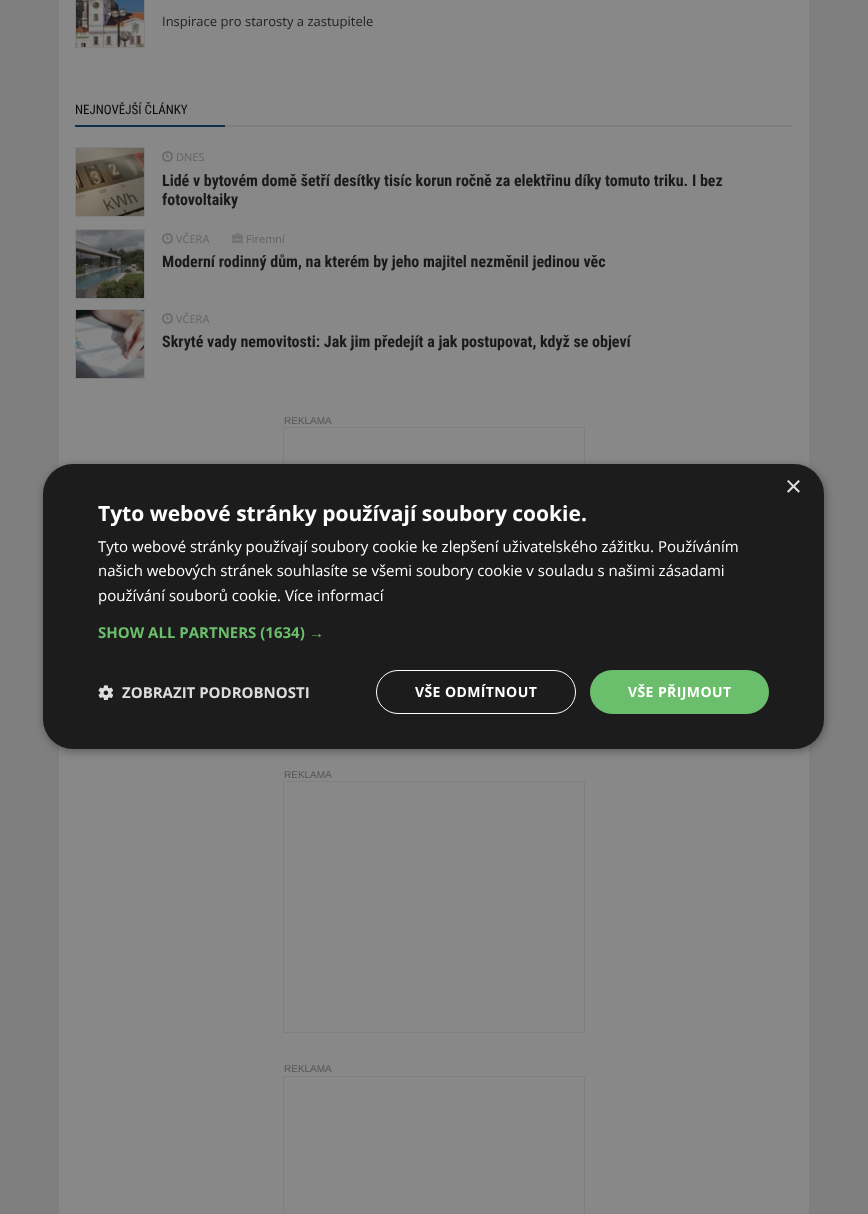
<!DOCTYPE html>
<meta charset="utf-8">
<style>body { margin: 0 } canvas { display: block }</style>
<canvas id="canvas" width="868" height="1214"></canvas>
<img id="img1" src="img_01.png" hidden>
<img id="img2" src="img_02.png" hidden>
<img id="img3" src="img_03.png" hidden>
<img id="img4" src="img_04.png" hidden>
<img id="img5" src="img_05.png" hidden>
<img id="img6" src="img_06.png" hidden>
<img id="img7" src="img_07.png" hidden>
<img id="img8" src="img_08.png" hidden>
<script>
window.onload = function () {
	const canvas = document.getElementById("canvas");
	const ctx = canvas.getContext("2d");
	ctx.miterLimit = 4;
	ctx.fontKerning = "normal";
	function txt(s, x, y) {
		ctx.fillText(s, x, y);
	}
	function fill(x, y, w, h) {
		ctx.fillRect(x, y, w, h);
	}
	function round(x, y, w, h, r) {
		ctx.beginPath();
		ctx.roundRect(x, y, w, h, r);
		ctx.fill();
	}
	function img(id, x, y, w, h) {
		ctx.drawImage(document.getElementById(id), x, y, w, h);
	}

	ctx.fillStyle = "#7F7F7F";
	fill(0, 0, 868, 1214);
	ctx.fillStyle = "#888888";
	fill(59, 0, 750, 1214);
	ctx.strokeStyle = "#7E7E7E";
	ctx.strokeRect(75.5, -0.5, 69, 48);
	img("img1", 76, 0, 68, 47);
	img("img2", 75, 125, 718, 2);
	ctx.strokeRect(75.5, 147.5, 69, 69);
	img("img3", 76, 148, 68, 68);
	img("img4", 162, 151, 11, 11);
	ctx.strokeRect(75.5, 229.5, 69, 69);
	img("img5", 76, 230, 68, 68);
	img("img4", 162, 233, 11, 11);
	img("img6", 232, 233, 11, 10);
	ctx.strokeRect(75.5, 309.5, 69, 69);
	img("img7", 76, 310, 68, 68);
	img("img4", 162, 313, 11, 11);
	ctx.strokeStyle = "#7F7F7F";
	ctx.strokeRect(283.5, 427.5, 301, 251);
	ctx.strokeRect(283.5, 781.5, 301, 251);
	ctx.strokeRect(283.5, 1076.5, 301, 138);
	ctx.fillStyle = "rgba(0, 0, 0, 0.35)";
	ctx.filter = "blur(4px)";
	ctx.beginPath();
	ctx.roundRect(44, 466, 781, 285, 30);
	ctx.fill();
	ctx.filter = "none";
	ctx.fillStyle = "#1C1C1C";
	round(43, 464, 781, 285, 30);
	img("img8", 98, 685, 15, 15);
	ctx.beginPath();
	ctx.roundRect(376.5, 670.5, 199, 43, 21.5);
	ctx.strokeStyle = "#FFFFFF";
	ctx.stroke();
	ctx.fillStyle = "#6BBE6B";
	round(590, 670, 179, 44, 22);
	ctx.font = "13px Open Sans";
	ctx.fillStyle = "#222222";
	txt("Inspirace pro starosty a zastupitele", 162, 26);
	ctx.font = "13px Roboto Condensed";
	ctx.fillStyle = "#090909";
	txt("NEJNOVĚJŠÍ ČLÁNKY", 75, 114);
	ctx.font = "11px Open Sans";
	ctx.fillStyle = "#636363";
	txt("DNES", 176, 161);
	ctx.font = "bold 16px Roboto Condensed";
	ctx.fillStyle = "#1A1A1A";
	txt("Lidé v bytovém domě šetří desítky tisíc korun ročně za elektřinu díky tomuto triku. I bez", 162, 186);
	txt("fotovoltaiky", 162, 205);
	ctx.font = "11px Open Sans";
	ctx.fillStyle = "#636363";
	txt("VČERA", 176, 243);
	txt("Firemní", 246, 243);
	ctx.font = "bold 16px Roboto Condensed";
	ctx.fillStyle = "#1A1A1A";
	txt("Moderní rodinný dům, na kterém by jeho majitel nezměnil jedinou věc", 162, 267);
	ctx.font = "11px Open Sans";
	ctx.fillStyle = "#636363";
	txt("VČERA", 176, 323);
	ctx.font = "bold 16px Roboto Condensed";
	ctx.fillStyle = "#1A1A1A";
	txt("Skryté vady nemovitosti: Jak jim předejít a jak postupovat, když se objeví", 162, 347);
	ctx.font = "10px Liberation Sans";
	ctx.fillStyle = "#555555";
	txt("REKLAMA", 284, 424);
	txt("REKLAMA", 284, 778);
	txt("REKLAMA", 284, 1072);
	ctx.font = "29px Liberation Sans";
	ctx.fillStyle = "#DDDDDD";
	txt("×", 785, 496);
	ctx.font = "bold 21px Open Sans";
	ctx.fillStyle = "#FFFFFF";
	txt("Tyto webové stránky používají soubory cookie.", 98, 521);
	ctx.font = "15px Open Sans";
	txt("Tyto webové stránky používají soubory cookie ke zlepšení uživatelského zážitku. Používáním", 98, 552);
	txt("našich webových stránek souhlasíte se všemi soubory cookie v souladu s našimi zásadami", 98, 576);
	txt("používání souborů cookie. Více informací", 98, 601);
	ctx.font = "bold 15px Open Sans";
	ctx.fillStyle = "#6BBE6B";
	txt("SHOW ALL PARTNERS (1634)", 98, 638);
	ctx.font = "bold 15px Liberation Sans";
	txt("→", 309, 638);
	ctx.font = "bold 15px Open Sans";
	ctx.fillStyle = "#DDDDDD";
	txt("ZOBRAZIT PODROBNOSTI", 122, 698);
	ctx.letterSpacing = "0.4px";
	ctx.font = "bold 14px Open Sans";
	ctx.fillStyle = "#FFFFFF";
	txt("VŠE ODMÍTNOUT", 415, 697);
	txt("VŠE PŘIJMOUT", 628, 697);
};
</script>
